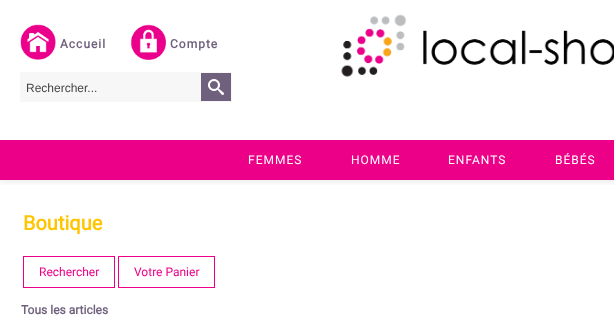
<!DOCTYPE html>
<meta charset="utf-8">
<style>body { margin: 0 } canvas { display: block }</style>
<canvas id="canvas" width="614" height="325"></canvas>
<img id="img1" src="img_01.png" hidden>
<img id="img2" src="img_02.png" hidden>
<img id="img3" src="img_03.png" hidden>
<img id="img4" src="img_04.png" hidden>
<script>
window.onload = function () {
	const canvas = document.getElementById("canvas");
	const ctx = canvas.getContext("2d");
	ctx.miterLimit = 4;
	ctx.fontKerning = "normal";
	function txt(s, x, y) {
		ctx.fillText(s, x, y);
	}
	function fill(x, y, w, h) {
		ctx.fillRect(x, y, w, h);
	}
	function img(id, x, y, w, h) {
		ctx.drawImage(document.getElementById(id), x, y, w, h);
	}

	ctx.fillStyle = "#FFFFFF";
	fill(0, 0, 614, 325);
	ctx.save();
	ctx.beginPath();
	ctx.rect(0, 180, 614, 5);
	ctx.clip();
	ctx.fillStyle = "rgba(0, 0, 0, 0.12)";
	ctx.filter = "blur(5px)";
	ctx.beginPath();
	ctx.rect(0, 0, 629, 180);
	ctx.fill();
	ctx.filter = "none";
	ctx.restore();
	img("img1", 20, 24, 36, 36);
	img("img2", 130, 24, 36, 36);
	ctx.fillStyle = "#F7F7F7";
	fill(20, 72, 212, 30);
	ctx.fillStyle = "#6F607D";
	fill(201, 73, 30, 28);
	img("img3", 208, 79, 16, 16);
	img("img4", 341, 14, 273, 63);
	ctx.fillStyle = "#EC0088";
	fill(0, 140, 614, 40);
	ctx.strokeStyle = "#EC0088";
	ctx.strokeRect(23.5, 256.5, 91, 31);
	ctx.strokeRect(118.5, 256.5, 96, 31);
	ctx.letterSpacing = "1px";
	ctx.font = "bold 12px Roboto";
	ctx.fillStyle = "#6F607D";
	txt("Accueil", 60, 48);
	txt("Compte", 170, 48);
	ctx.letterSpacing = "0px";
	ctx.font = "12px Liberation Sans";
	ctx.fillStyle = "#454545";
	txt("Rechercher...", 26, 92);
	ctx.letterSpacing = "1px";
	ctx.font = "12px Roboto";
	ctx.fillStyle = "#FFFFFF";
	txt("FEMMES", 248, 164);
	txt("HOMME", 351, 164);
	txt("ENFANTS", 448, 164);
	txt("BÉBÉS", 555, 164);
	ctx.letterSpacing = "0px";
	ctx.font = "bold 20px Roboto";
	ctx.fillStyle = "#FFC500";
	txt("Boutique", 23, 230);
	ctx.font = "12px Roboto";
	ctx.fillStyle = "#EC0088";
	txt("Rechercher", 39, 276);
	txt("Votre Panier", 134, 276);
	ctx.font = "bold 12px Roboto";
	ctx.fillStyle = "#6F607D";
	txt("Tous les articles", 21, 314);
};
</script>
